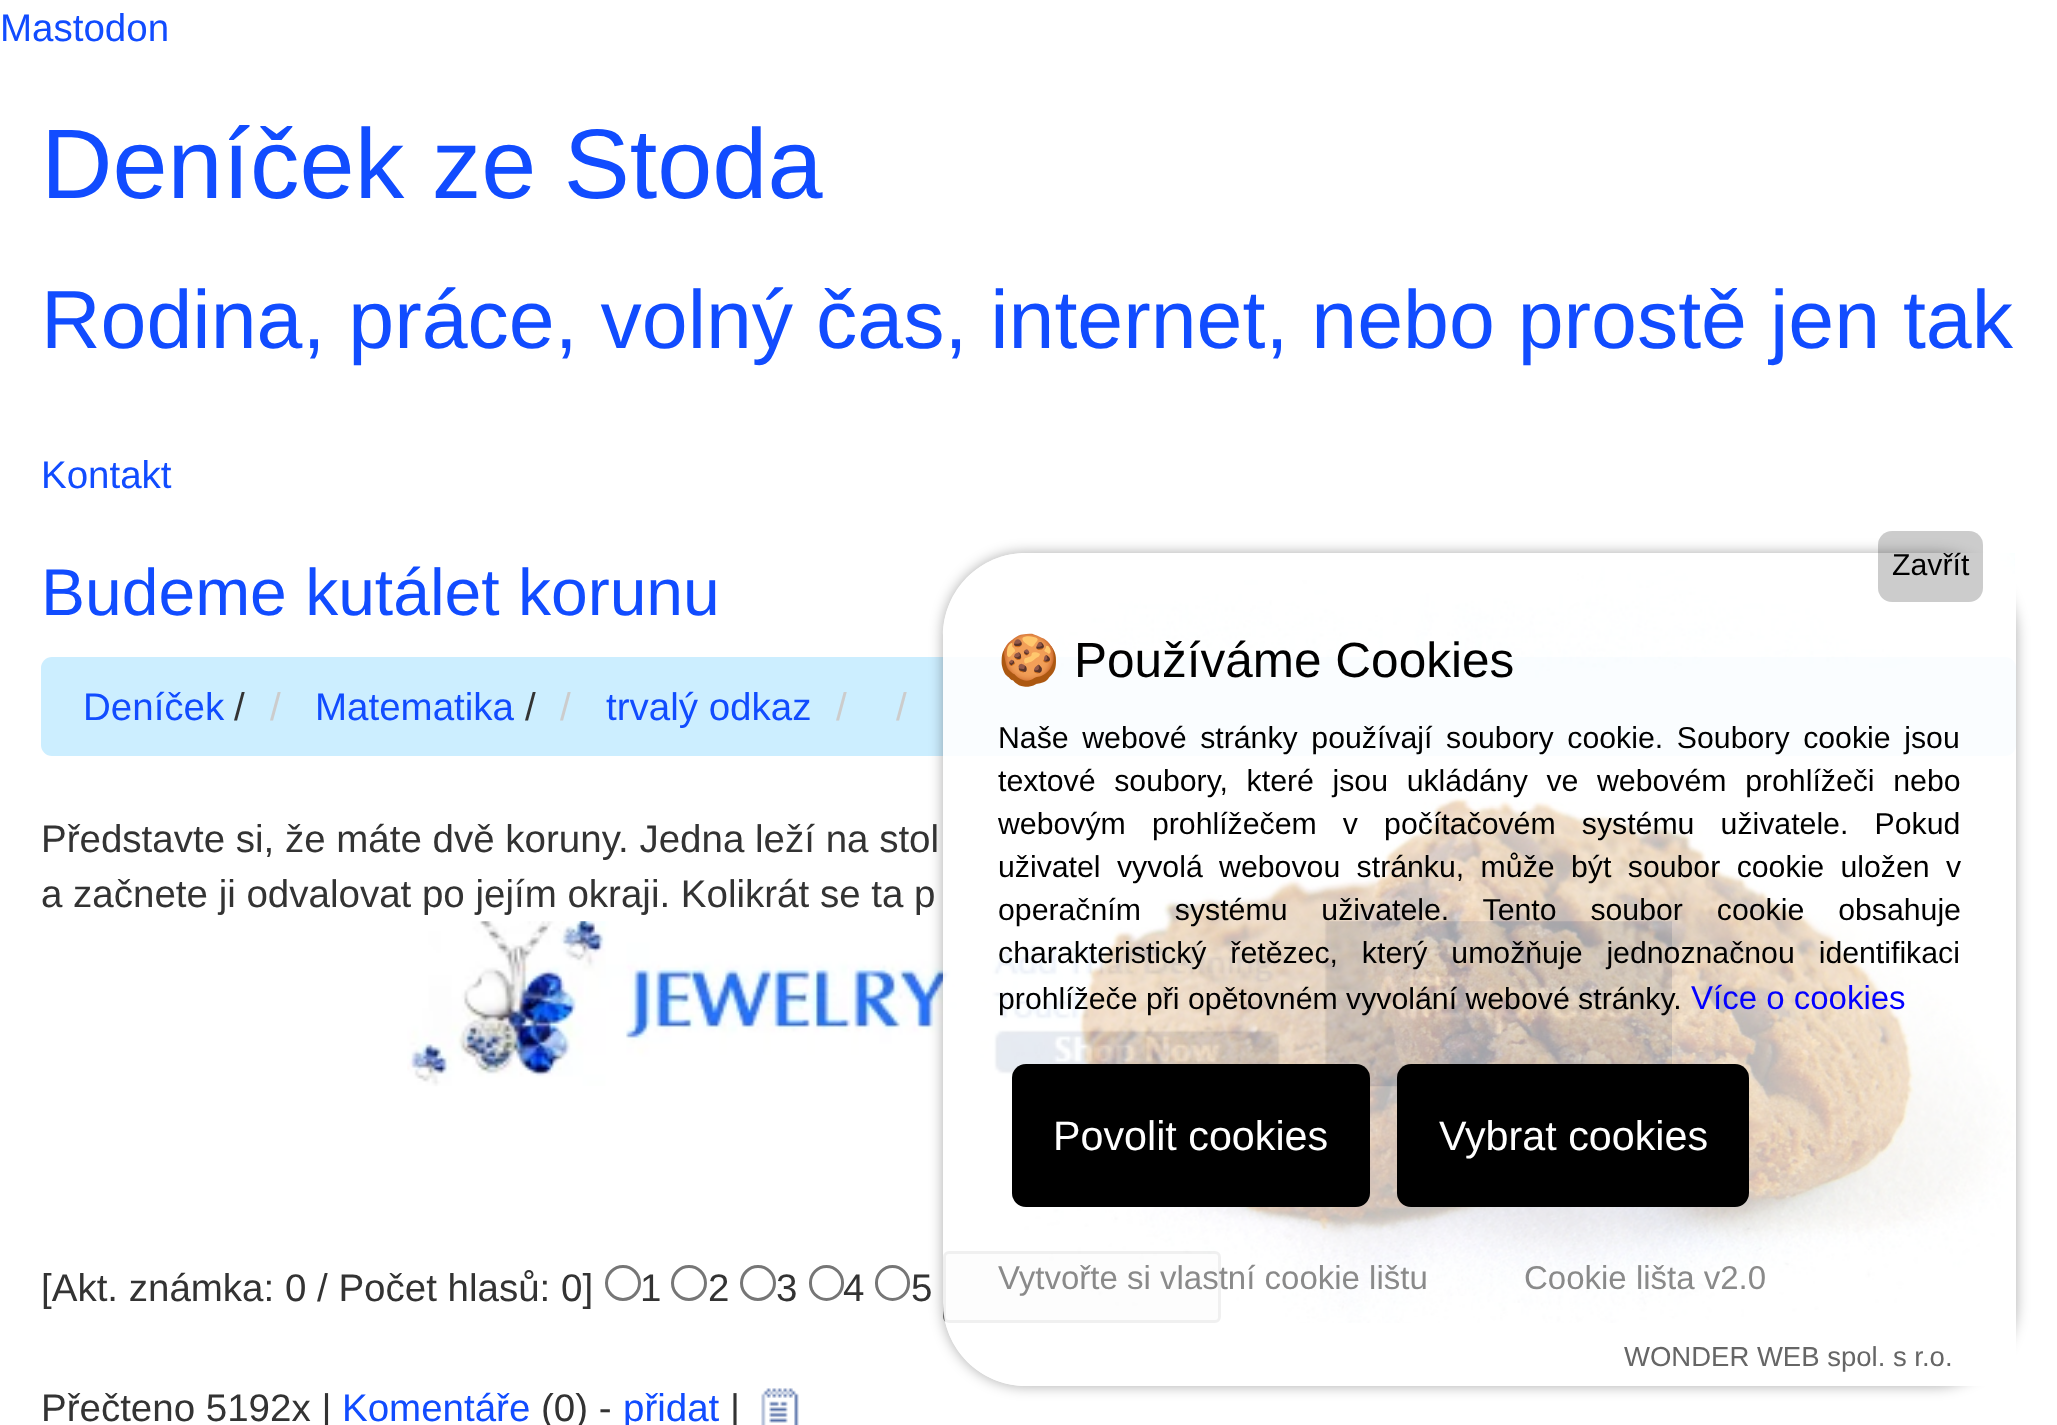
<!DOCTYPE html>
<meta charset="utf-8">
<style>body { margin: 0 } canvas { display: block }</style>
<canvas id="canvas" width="2057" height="1425"></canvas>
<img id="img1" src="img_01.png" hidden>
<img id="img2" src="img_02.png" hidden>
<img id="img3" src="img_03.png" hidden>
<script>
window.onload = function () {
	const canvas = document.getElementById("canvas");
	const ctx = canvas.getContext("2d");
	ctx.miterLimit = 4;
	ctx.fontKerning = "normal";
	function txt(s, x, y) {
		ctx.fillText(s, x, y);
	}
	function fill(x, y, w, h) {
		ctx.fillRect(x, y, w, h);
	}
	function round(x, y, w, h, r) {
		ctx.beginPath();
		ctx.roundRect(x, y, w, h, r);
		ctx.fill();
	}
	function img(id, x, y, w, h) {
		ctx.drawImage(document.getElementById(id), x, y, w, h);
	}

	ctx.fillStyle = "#FFFFFF";
	fill(0, 0, 2057, 1425);
	ctx.fillStyle = "#CCEEFF";
	round(41, 657, 1975, 99, 11);
	img("img1", 407, 921, 1265, 166);
	ctx.beginPath();
	ctx.arc(623, 1283, 16.5, 0, Math.PI * 2);
	ctx.strokeStyle = "#767676";
	ctx.lineWidth = 3;
	ctx.stroke();
	ctx.beginPath();
	ctx.arc(689, 1283, 16.5, 0, Math.PI * 2);
	ctx.stroke();
	ctx.beginPath();
	ctx.arc(758, 1283, 16.5, 0, Math.PI * 2);
	ctx.stroke();
	ctx.beginPath();
	ctx.roundRect(810.5, 1266.5, 32, 33, 16);
	ctx.stroke();
	ctx.beginPath();
	ctx.roundRect(876.5, 1266.5, 32, 33, 16);
	ctx.stroke();
	ctx.fillStyle = "#EFEFEF";
	ctx.beginPath();
	ctx.roundRect(944.5, 1252.5, 275, 69, 4.5);
	ctx.fill();
	ctx.stroke();
	img("img2", 761, 1388, 38, 37);
	ctx.save();
	ctx.beginPath();
	ctx.moveTo(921, 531);
	ctx.lineTo(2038, 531);
	ctx.lineTo(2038, 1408);
	ctx.lineTo(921, 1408);
	ctx.closePath();
	ctx.moveTo(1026, 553);
	ctx.lineTo(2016, 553);
	ctx.lineTo(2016, 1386);
	ctx.lineTo(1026, 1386);
	ctx.bezierCurveTo(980, 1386, 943, 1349, 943, 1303);
	ctx.lineTo(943, 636);
	ctx.bezierCurveTo(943, 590, 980, 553, 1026, 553);
	ctx.closePath();
	ctx.clip("evenodd");
	ctx.fillStyle = "rgba(0, 0, 0, 0.33)";
	ctx.filter = "blur(7px)";
	ctx.beginPath();
	ctx.roundRect(943, 553, 1073, 833, 83);
	ctx.fill();
	ctx.filter = "none";
	ctx.restore();
	ctx.fillStyle = "rgba(255, 255, 255, 0.85)";
	ctx.beginPath();
	ctx.roundRect(943, 553, 1073, 833, [83, 0, 0, 83]);
	ctx.fill();
	img("img3", 943, 553, 1072, 770);
	ctx.fillStyle = "rgba(0, 0, 0, 0.2)";
	round(1878, 531, 105, 71, 14);
	ctx.fillStyle = "#000000";
	round(1012, 1064, 358, 143, 14);
	round(1397, 1064, 352, 143, 14);
	ctx.font = "38.5px Liberation Sans";
	ctx.fillStyle = "#114CFF";
	txt("Mastodon", 0, 41);
	ctx.font = "99px Liberation Sans";
	txt("Deníček ze Stoda", 41, 198);
	ctx.font = "82.5px Liberation Sans";
	txt("Rodina, práce, volný čas, internet, nebo prostě jen tak", 41, 348);
	ctx.font = "38.5px Liberation Sans";
	txt("Kontakt", 41, 488);
	ctx.font = "66px Liberation Sans";
	txt("Budeme kutálet korunu", 41, 615);
	ctx.font = "38.5px Liberation Sans";
	txt("Deníček", 83, 720);
	ctx.fillStyle = "#333333";
	txt("/", 234, 720);
	ctx.fillStyle = "#CCCCCC";
	txt("/", 270, 720);
	ctx.fillStyle = "#114CFF";
	txt("Matematika", 315, 720);
	ctx.fillStyle = "#333333";
	txt("/", 525, 720);
	ctx.fillStyle = "#CCCCCC";
	txt("/", 560, 720);
	ctx.fillStyle = "#114CFF";
	txt("trvalý odkaz", 606, 720);
	ctx.fillStyle = "#CCCCCC";
	txt("/", 836, 720);
	txt("/", 896, 720);
	ctx.fillStyle = "#333333";
	txt("Představte si, že máte dvě koruny. Jedna leží na stol", 41, 852);
	txt("a začnete ji odvalovat po jejím okraji. Kolikrát se ta p", 41, 907);
	txt("[Akt. známka: 0 / Počet hlasů: 0]", 41, 1301);
	txt("1", 640, 1301);
	txt("2", 708, 1301);
	txt("3", 776, 1301);
	txt("4", 843, 1301);
	txt("5", 911, 1301);
	txt("Přečteno 5192x |", 41, 1421);
	ctx.fillStyle = "#114CFF";
	txt("Komentáře", 342, 1421);
	ctx.fillStyle = "#333333";
	txt("(0) -", 541, 1421);
	ctx.fillStyle = "#114CFF";
	txt("přidat", 623, 1421);
	ctx.fillStyle = "#333333";
	txt("|", 730, 1421);
	ctx.font = "30.25px Liberation Sans";
	ctx.fillStyle = "#000000";
	txt("Zavřít", 1892, 575);
	ctx.font = "49.5px Noto Color Emoji";
	txt("🍪", 998, 677);
	ctx.font = "49.5px Liberation Sans";
	txt("Používáme Cookies", 1074, 677);
	ctx.wordSpacing = "5.25px";
	ctx.font = "30.25px Liberation Sans";
	txt("Naše webové stránky používají soubory cookie. Soubory cookie jsou", 998, 748);
	ctx.wordSpacing = "10.25px";
	txt("textové soubory, které jsou ukládány ve webovém prohlížeči nebo", 998, 791);
	ctx.wordSpacing = "17.75px";
	txt("webovým prohlížečem v počítačovém systému uživatele. Pokud", 998, 834);
	ctx.wordSpacing = "8px";
	txt("uživatel vyvolá webovou stránku, může být soubor cookie uložen v", 998, 877);
	ctx.wordSpacing = "25.5px";
	txt("operačním systému uživatele. Tento soubor cookie obsahuje", 998, 920);
	ctx.wordSpacing = "15.5px";
	txt("charakteristický řetězec, který umožňuje jednoznačnou identifikaci", 998, 963);
	ctx.wordSpacing = "0px";
	txt("prohlížeče při opětovném vyvolání webové stránky.", 998, 1009);
	ctx.font = "33px Liberation Sans";
	ctx.fillStyle = "#0400FF";
	txt("Více o cookies", 1691, 1009);
	ctx.font = "41.25px Liberation Sans";
	ctx.fillStyle = "#FFFFFF";
	txt("Povolit cookies", 1053, 1150);
	txt("Vybrat cookies", 1439, 1150);
	ctx.font = "33px Liberation Sans";
	ctx.fillStyle = "#8A8A8A";
	txt("Vytvořte si vlastní cookie lištu", 998, 1289);
	txt("Cookie lišta v2.0", 1524, 1289);
	ctx.font = "27.5px Liberation Sans";
	ctx.fillStyle = "#666666";
	txt("WONDER WEB spol. s r.o.", 1624, 1366);
};
</script>
